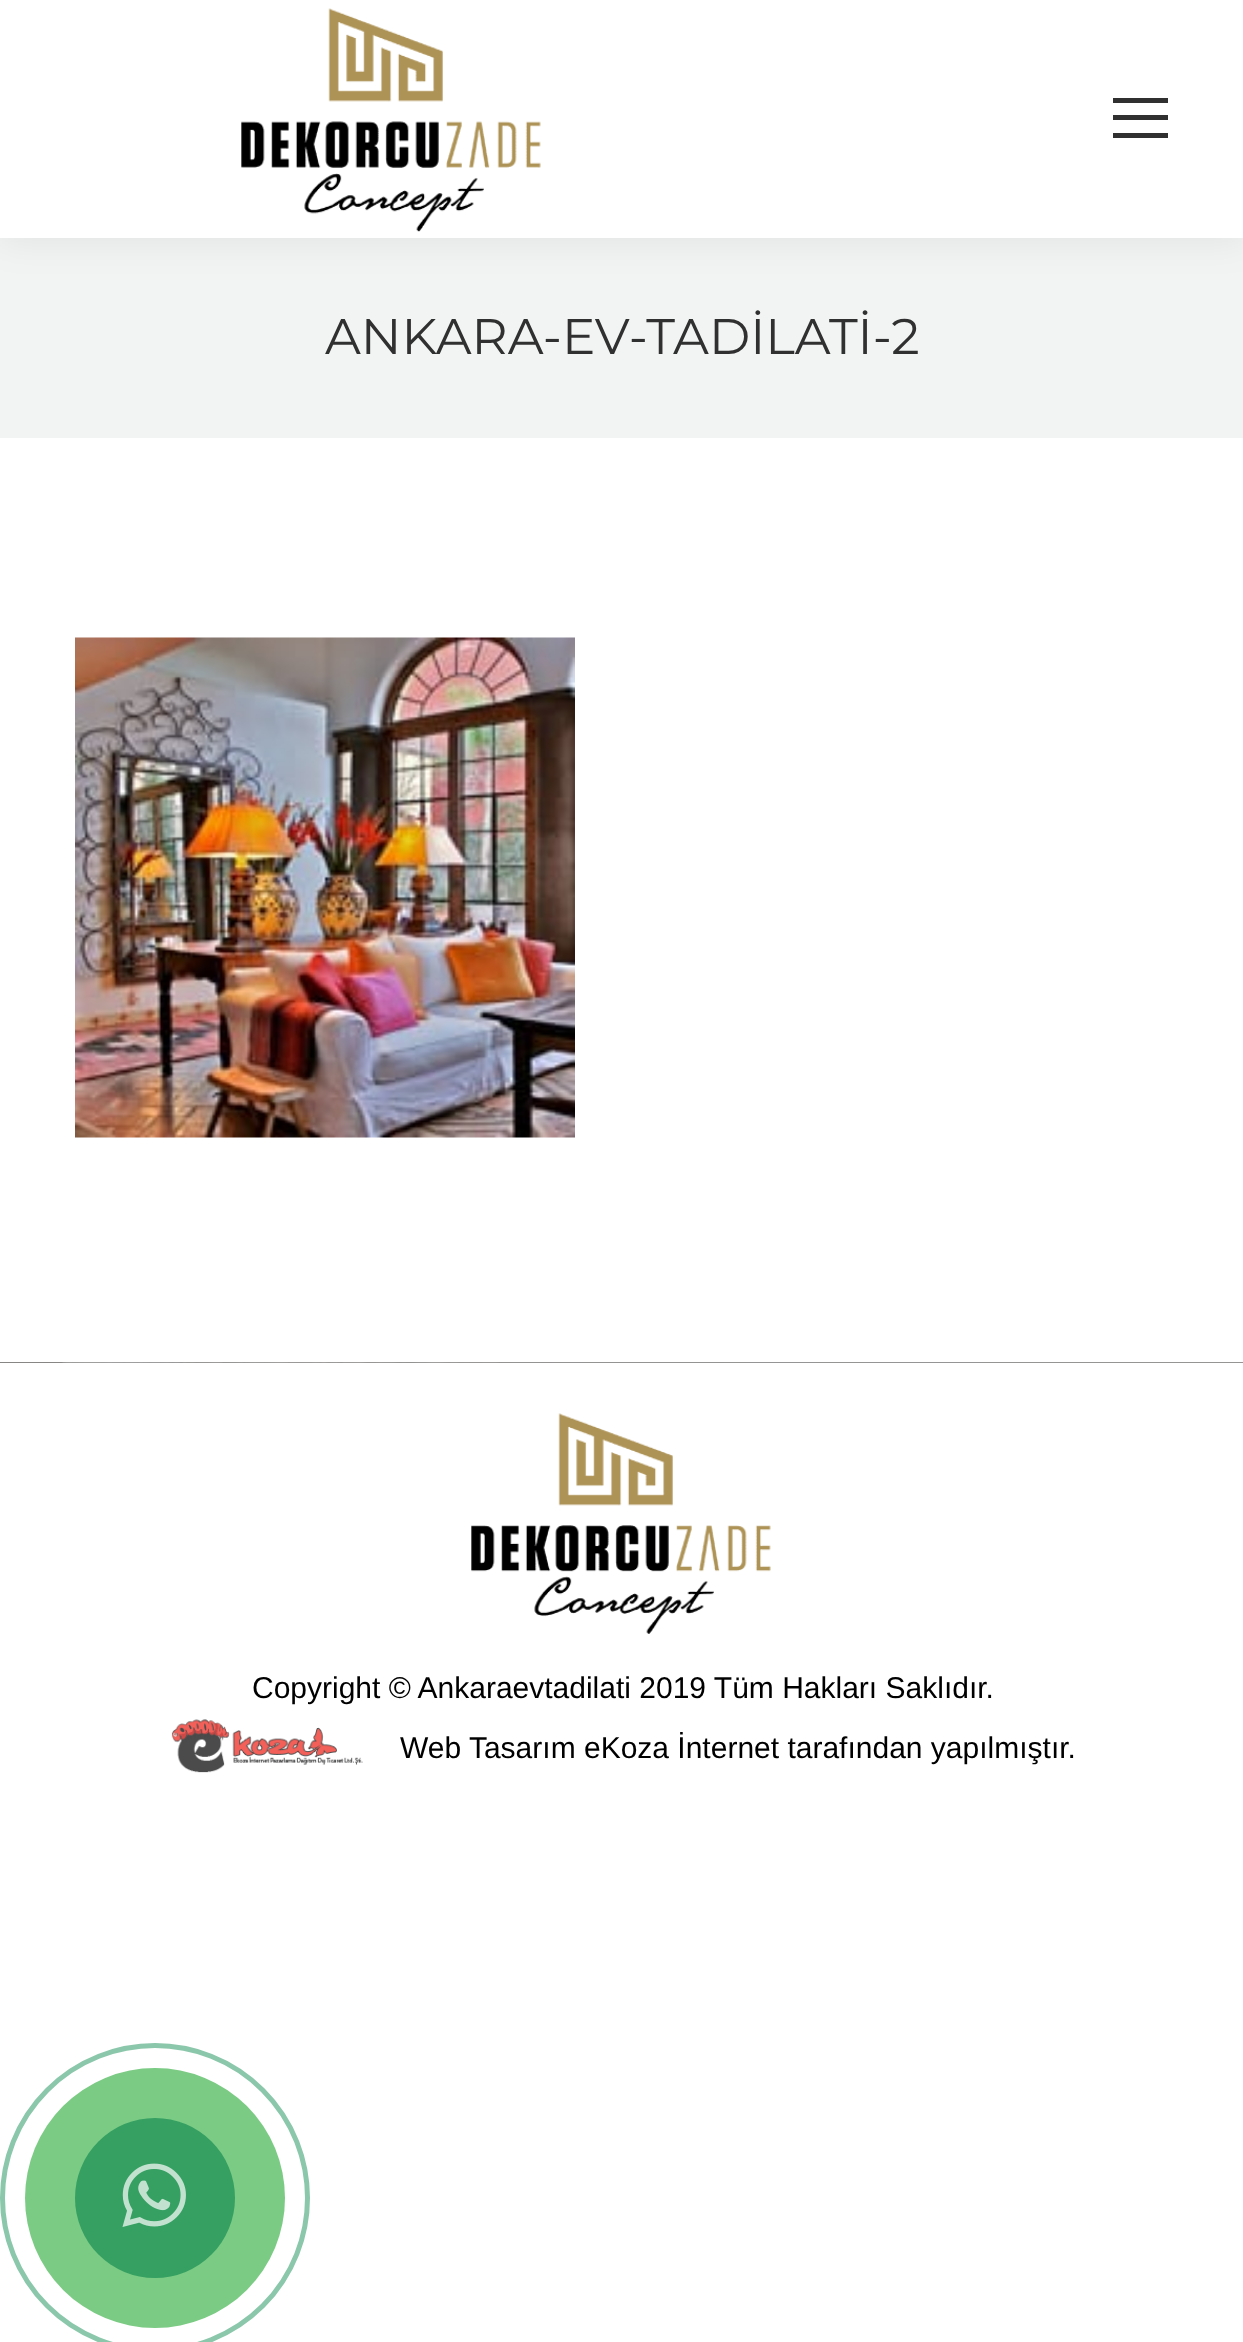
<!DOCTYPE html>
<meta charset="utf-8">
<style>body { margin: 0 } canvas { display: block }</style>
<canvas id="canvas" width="1243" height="2342"></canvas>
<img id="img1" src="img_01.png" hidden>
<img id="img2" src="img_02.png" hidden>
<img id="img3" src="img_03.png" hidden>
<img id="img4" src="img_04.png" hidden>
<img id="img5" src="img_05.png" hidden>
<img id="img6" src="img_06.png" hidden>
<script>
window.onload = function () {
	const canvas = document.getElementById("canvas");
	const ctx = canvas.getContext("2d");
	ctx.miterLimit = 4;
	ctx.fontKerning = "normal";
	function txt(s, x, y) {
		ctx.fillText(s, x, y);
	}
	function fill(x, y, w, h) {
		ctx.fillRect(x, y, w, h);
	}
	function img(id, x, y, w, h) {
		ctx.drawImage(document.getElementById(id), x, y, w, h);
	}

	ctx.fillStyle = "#FFFFFF";
	fill(0, 0, 1243, 2342);
	ctx.fillStyle = "#F2F3F3";
	fill(0, 238, 1243, 200);
	ctx.fillStyle = "rgba(0, 0, 0, 0.07)";
	ctx.filter = "blur(19px)";
	ctx.beginPath();
	ctx.rect(-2, -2, 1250, 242);
	ctx.fill();
	ctx.filter = "none";
	ctx.fillStyle = "#FFFFFF";
	fill(0, 0, 1243, 238);
	img("img1", 241, 8, 300, 224);
	ctx.fillStyle = "#303030";
	fill(1113, 98, 55, 5);
	fill(1113, 115, 55, 5);
	fill(1113, 133, 55, 5);
	img("img2", 75, 637, 500, 501);
	img("img3", 0, 1362, 1243, 1);
	img("img4", 471, 1413, 300, 221);
	img("img5", 171, 1719, 192, 54);
	ctx.beginPath();
	ctx.arc(155, 2198, 152.5, 0, Math.PI * 2);
	ctx.strokeStyle = "#8BC7AA";
	ctx.lineWidth = 5;
	ctx.stroke();
	ctx.fillStyle = "#7BCB84";
	ctx.beginPath();
	ctx.arc(155, 2198, 130, 0, Math.PI * 2);
	ctx.fill();
	ctx.fillStyle = "#35A062";
	ctx.beginPath();
	ctx.arc(155, 2198, 80, 0, Math.PI * 2);
	ctx.fill();
	img("img6", 122, 2163, 64, 64);
	ctx.font = "50px Montserrat";
	ctx.fillStyle = "#303030";
	txt("ANKARA-EV-TADİLATİ-2", 325, 354);
	ctx.font = "30px Liberation Sans";
	ctx.fillStyle = "#000000";
	txt("Copyright © Ankaraevtadilati 2019 Tüm Hakları Saklıdır.", 252, 1698);
	txt("Web Tasarım eKoza İnternet tarafından yapılmıştır.", 400, 1758);
};
</script>
